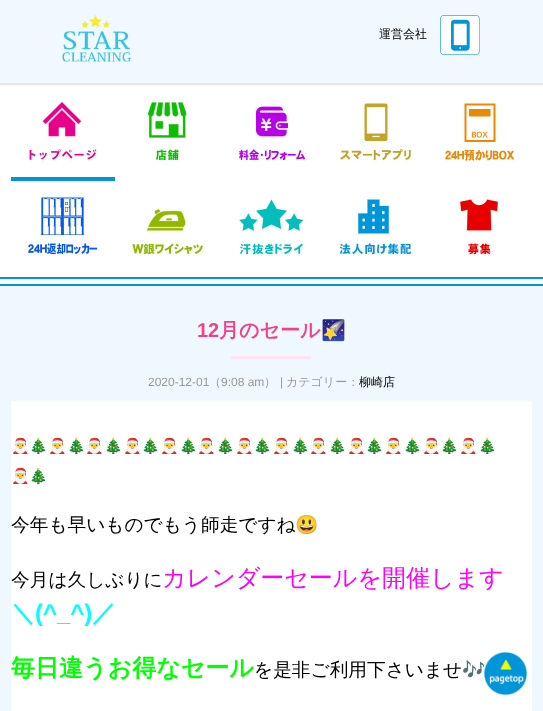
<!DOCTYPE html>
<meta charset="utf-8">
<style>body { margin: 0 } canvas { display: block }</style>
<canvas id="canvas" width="543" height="711"></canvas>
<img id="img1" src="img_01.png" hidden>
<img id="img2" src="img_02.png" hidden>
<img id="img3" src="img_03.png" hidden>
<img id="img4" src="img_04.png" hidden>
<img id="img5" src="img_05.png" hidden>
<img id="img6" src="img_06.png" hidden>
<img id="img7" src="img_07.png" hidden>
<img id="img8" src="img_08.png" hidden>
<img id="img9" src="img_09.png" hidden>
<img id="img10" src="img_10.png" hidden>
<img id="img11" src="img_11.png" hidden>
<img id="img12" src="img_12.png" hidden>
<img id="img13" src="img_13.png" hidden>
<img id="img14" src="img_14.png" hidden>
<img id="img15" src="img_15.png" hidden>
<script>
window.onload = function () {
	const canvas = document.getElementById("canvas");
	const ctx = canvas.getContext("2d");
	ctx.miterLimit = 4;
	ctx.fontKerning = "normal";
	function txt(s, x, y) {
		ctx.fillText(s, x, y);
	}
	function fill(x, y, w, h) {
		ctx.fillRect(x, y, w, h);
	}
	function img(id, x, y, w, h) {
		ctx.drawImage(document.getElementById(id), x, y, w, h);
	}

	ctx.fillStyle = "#FFFFFF";
	fill(0, 0, 543, 711);
	img("img1", 0, 0, 543, 86);
	img("img2", 62, 15, 70, 47);
	img("img3", 440, 15, 40, 40);
	img("img4", 0, 277, 543, 9);
	ctx.fillStyle = "#0095D9";
	fill(11, 177, 104, 4);
	img("img5", 29, 102, 68, 60);
	img("img6", 146, 102, 43, 60);
	img("img7", 238, 106, 68, 56);
	img("img8", 338, 103, 73, 59);
	img("img9", 442, 102, 73, 60);
	img("img10", 25, 196, 73, 60);
	img("img11", 130, 208, 75, 48);
	img("img12", 239, 197, 67, 59);
	img("img13", 338, 196, 75, 60);
	img("img14", 458, 197, 40, 59);
	ctx.fillStyle = "#F0F8FF";
	fill(0, 286, 543, 425);
	ctx.fillStyle = "#FFE3EF";
	fill(231, 356, 80, 3);
	ctx.fillStyle = "#FFFFFF";
	fill(11, 401, 521, 310);
	ctx.font = "500 12px WenQuanYi Zen Hei";
	ctx.fillStyle = "#000000";
	txt("運営会社", 379, 38);
	ctx.font = "bold 20px Liberation Sans";
	ctx.fillStyle = "#F1418C";
	txt("12", 197, 337);
	ctx.font = "bold 20px WenQuanYi Zen Hei";
	txt("月のセール", 219, 337);
	ctx.font = "bold 20px Noto Color Emoji";
	txt("🌠", 321, 337);
	ctx.font = "12px Liberation Sans";
	ctx.fillStyle = "#999999";
	txt("2020-12-01", 148, 386);
	ctx.font = "500 12px WenQuanYi Zen Hei";
	txt("（", 209, 386);
	ctx.font = "12px Liberation Sans";
	txt("9:08 am", 221, 386);
	ctx.font = "500 12px WenQuanYi Zen Hei";
	txt("）", 264, 386);
	ctx.font = "12px Liberation Sans";
	txt("|", 280, 386);
	ctx.font = "500 12px WenQuanYi Zen Hei";
	txt("カテゴリー：", 286, 386);
	ctx.fillStyle = "#000000";
	txt("柳崎店", 359, 386);
	ctx.font = "15px Noto Color Emoji";
	txt("🎅🎄🎅🎄🎅🎄🎅🎄🎅🎄🎅🎄🎅🎄🎅🎄🎅🎄🎅🎄🎅🎄🎅🎄🎅🎄", 11, 451);
	txt("🎅🎄", 11, 481);
	ctx.font = "500 18.7px WenQuanYi Zen Hei";
	txt("今年も早いものでもう師走ですね", 11, 531);
	ctx.font = "18.7px Noto Color Emoji";
	txt("😃", 295, 531);
	ctx.font = "500 18.7px WenQuanYi Zen Hei";
	txt("今月は久しぶりに", 11, 586);
	ctx.font = "500 24px WenQuanYi Zen Hei";
	ctx.fillStyle = "#FF00FF";
	txt("カレンダーセールを開催します", 162, 586);
	ctx.font = "bold 24px WenQuanYi Zen Hei";
	ctx.fillStyle = "#00FFFF";
	txt("＼", 11, 621);
	ctx.font = "bold 24px Liberation Sans";
	txt("(^_^)", 35, 621);
	ctx.font = "bold 24px WenQuanYi Zen Hei";
	txt("／", 92, 621);
	ctx.fillStyle = "#00FF00";
	txt("毎日違うお得なセール", 11, 676);
	ctx.font = "500 18.7px WenQuanYi Zen Hei";
	ctx.fillStyle = "#000000";
	txt("を是非ご利用下さいませ", 254, 676);
	ctx.font = "18.7px Noto Color Emoji";
	txt("🎶", 462, 676);
	img("img15", 483, 651, 45, 45);
};
</script>
